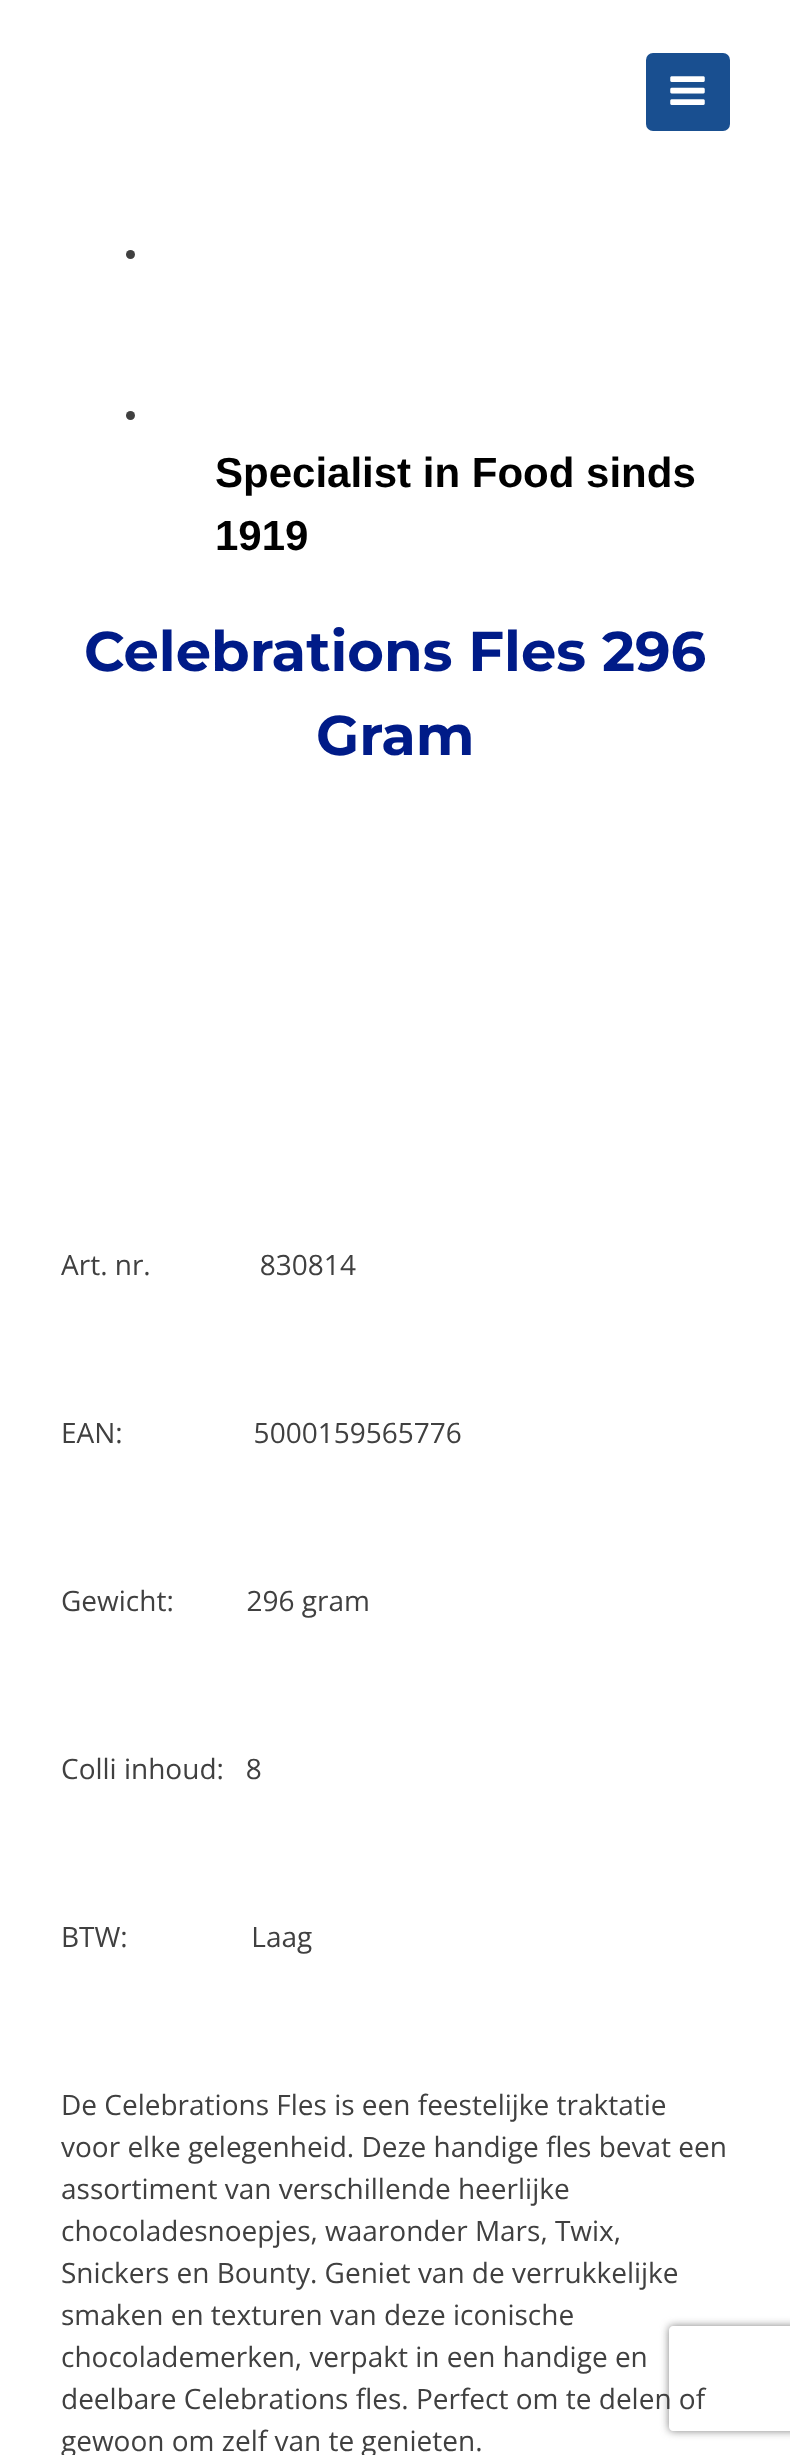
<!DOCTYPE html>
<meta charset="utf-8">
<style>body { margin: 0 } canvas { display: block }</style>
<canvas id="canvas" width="790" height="2455"></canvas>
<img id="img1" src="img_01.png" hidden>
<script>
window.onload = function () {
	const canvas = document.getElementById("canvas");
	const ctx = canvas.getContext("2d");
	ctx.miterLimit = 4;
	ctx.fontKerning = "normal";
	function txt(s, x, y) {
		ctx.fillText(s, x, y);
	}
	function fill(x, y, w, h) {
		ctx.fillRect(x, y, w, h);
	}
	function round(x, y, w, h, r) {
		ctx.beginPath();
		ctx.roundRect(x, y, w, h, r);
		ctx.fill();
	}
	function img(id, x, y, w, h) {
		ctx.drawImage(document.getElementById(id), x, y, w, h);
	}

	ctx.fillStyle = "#FFFFFF";
	fill(0, 0, 790, 2455);
	ctx.fillStyle = "#194F90";
	round(646, 53, 84, 78, 7);
	img("img1", 670, 76, 35, 29);
	ctx.fillStyle = "#404040";
	ctx.beginPath();
	ctx.arc(130.5, 254.5, 4.5, 0, Math.PI * 2);
	ctx.fill();
	ctx.beginPath();
	ctx.arc(130.5, 415.5, 4.5, 0, Math.PI * 2);
	ctx.fill();
	ctx.save();
	ctx.beginPath();
	ctx.moveTo(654, 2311);
	ctx.lineTo(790, 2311);
	ctx.lineTo(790, 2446);
	ctx.lineTo(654, 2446);
	ctx.closePath();
	ctx.moveTo(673, 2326);
	ctx.lineTo(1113, 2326);
	ctx.bezierCurveTo(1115, 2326, 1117, 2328, 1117, 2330);
	ctx.lineTo(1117, 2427);
	ctx.bezierCurveTo(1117, 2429, 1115, 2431, 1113, 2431);
	ctx.lineTo(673, 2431);
	ctx.bezierCurveTo(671, 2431, 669, 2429, 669, 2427);
	ctx.lineTo(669, 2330);
	ctx.bezierCurveTo(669, 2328, 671, 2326, 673, 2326);
	ctx.closePath();
	ctx.clip("evenodd");
	ctx.fillStyle = "#808080";
	ctx.filter = "blur(4.5px)";
	ctx.beginPath();
	ctx.roundRect(669, 2326, 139, 105, 4);
	ctx.fill();
	ctx.filter = "none";
	ctx.restore();
	ctx.font = "bold 42px Liberation Sans";
	ctx.fillStyle = "#000000";
	txt("Specialist in Food sinds", 215, 487);
	txt("1919", 215, 550);
	ctx.font = "bold 56px Montserrat";
	ctx.fillStyle = "#001B88";
	txt("Celebrations Fles 296", 84, 671);
	txt("Gram", 316, 755);
	ctx.font = "28px Open Sans";
	ctx.fillStyle = "#404040";
	txt("Art. nr.               830814", 61, 1275);
	txt("EAN:                  5000159565776", 61, 1443);
	txt("Gewicht:          296 gram", 61, 1611);
	txt("Colli inhoud:   8", 61, 1779);
	txt("BTW:                 Laag", 61, 1947);
	txt("De Celebrations Fles is een feestelijke traktatie", 61, 2115);
	txt("voor elke gelegenheid. Deze handige fles bevat een", 61, 2157);
	txt("assortiment van verschillende heerlijke", 61, 2199);
	txt("chocoladesnoepjes, waaronder Mars, Twix,", 61, 2241);
	txt("Snickers en Bounty. Geniet van de verrukkelijke", 61, 2283);
	txt("smaken en texturen van deze iconische", 61, 2325);
	txt("chocolademerken, verpakt in een handige en", 61, 2367);
	txt("deelbare Celebrations fles. Perfect om te delen of", 61, 2409);
	txt("gewoon om zelf van te genieten.", 61, 2451);
};
</script>
